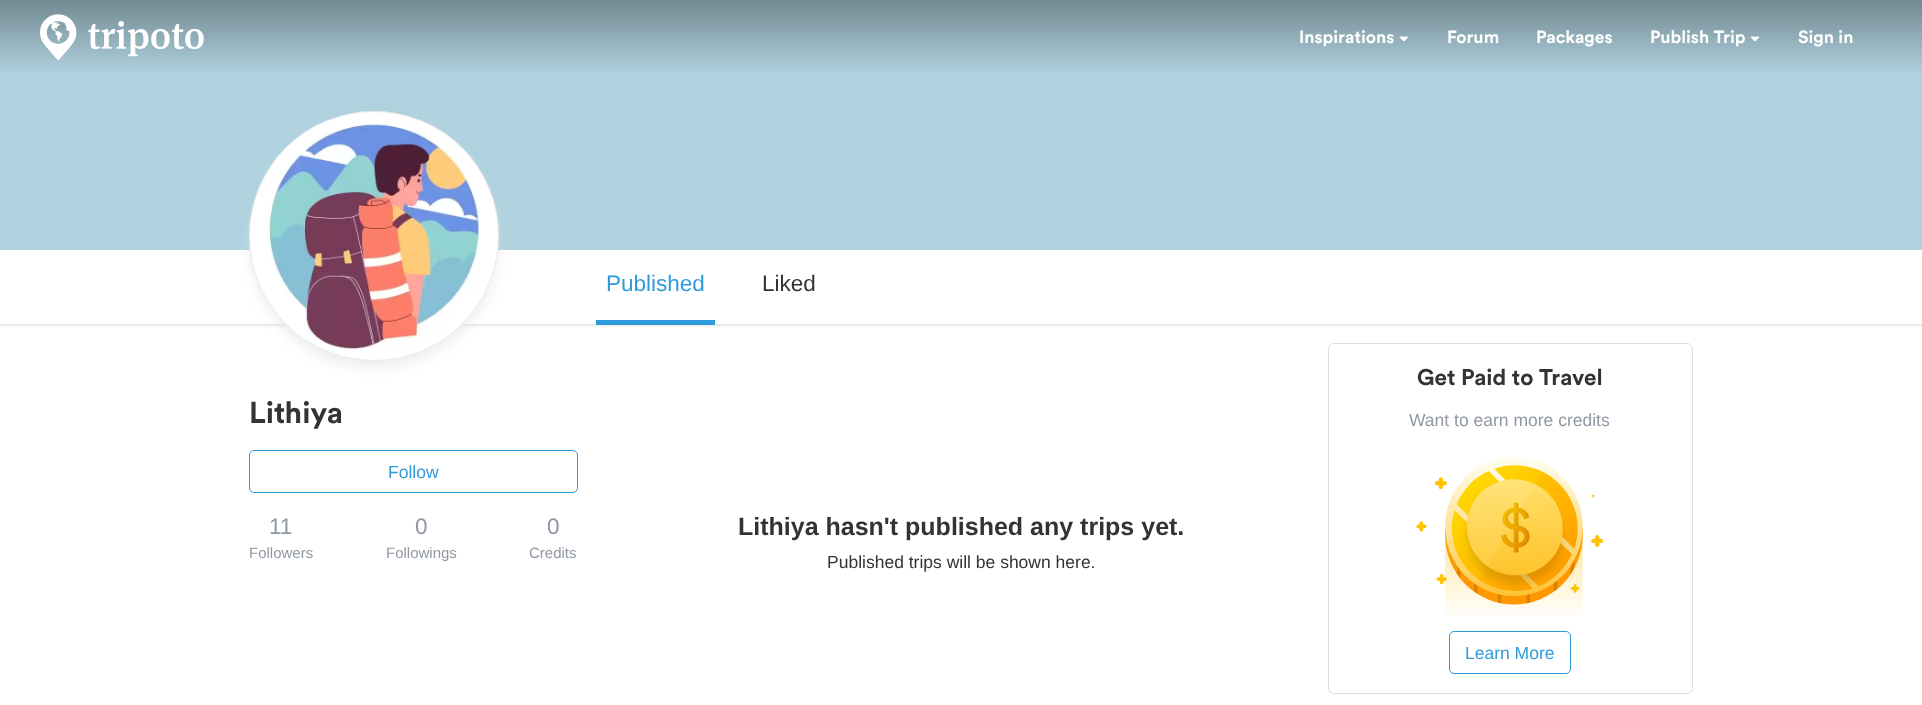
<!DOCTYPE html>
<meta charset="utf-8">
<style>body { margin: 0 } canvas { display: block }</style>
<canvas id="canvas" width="1922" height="705"></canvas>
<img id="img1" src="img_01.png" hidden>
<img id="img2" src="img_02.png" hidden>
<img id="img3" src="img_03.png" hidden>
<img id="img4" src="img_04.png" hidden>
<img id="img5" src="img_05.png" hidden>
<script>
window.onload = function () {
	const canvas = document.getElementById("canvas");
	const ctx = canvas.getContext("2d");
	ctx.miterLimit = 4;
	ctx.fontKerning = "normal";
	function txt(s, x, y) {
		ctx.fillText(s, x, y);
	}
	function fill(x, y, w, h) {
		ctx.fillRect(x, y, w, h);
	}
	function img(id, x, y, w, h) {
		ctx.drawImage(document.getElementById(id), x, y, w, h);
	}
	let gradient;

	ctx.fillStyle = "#FFFFFF";
	fill(0, 0, 1922, 705);
	gradient = ctx.createLinearGradient(961, 0, 961, 75);
	gradient.addColorStop(0, "#728991");
	gradient.addColorStop(1, "#B0D2DF");
	ctx.fillStyle = gradient;
	fill(0, 0, 1922, 75);
	img("img1", 40, 14, 164, 47);
	img("img2", 1399, 36, 9, 6);
	img("img3", 1750, 36, 10, 6);
	ctx.fillStyle = "rgba(0, 0, 0, 0.25)";
	ctx.filter = "blur(2px)";
	ctx.beginPath();
	ctx.rect(0, 250, 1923, 74);
	ctx.fill();
	ctx.filter = "none";
	ctx.fillStyle = "#B0D2DF";
	fill(0, 75, 1922, 175);
	ctx.fillStyle = "#FFFFFF";
	fill(0, 250, 1922, 74);
	ctx.fillStyle = "#2F9BDB";
	fill(596, 320, 119, 5);
	ctx.fillStyle = "rgba(221, 221, 221, 0.5)";
	ctx.filter = "blur(6px)";
	ctx.beginPath();
	ctx.roundRect(249, 118, 250, 250, 125);
	ctx.fill();
	ctx.filter = "none";
	ctx.fillStyle = "#FFFFFF";
	ctx.beginPath();
	ctx.arc(374, 236, 125, 0, Math.PI * 2);
	ctx.fill();
	ctx.beginPath();
	ctx.arc(374, 236, 124.5, 0, Math.PI * 2);
	ctx.strokeStyle = "rgba(145, 151, 163, 0.2)";
	ctx.stroke();
	img("img4", 268, 123, 212, 226);
	ctx.beginPath();
	ctx.roundRect(249.5, 450.5, 328, 42, 4.5);
	ctx.strokeStyle = "#2F9BDB";
	ctx.stroke();
	ctx.beginPath();
	ctx.roundRect(1328.5, 343.5, 364, 350, 5.5);
	ctx.strokeStyle = "#DDDDDD";
	ctx.stroke();
	img("img5", 1416, 456, 187, 161);
	ctx.beginPath();
	ctx.roundRect(1449.5, 631.5, 121, 42, 4.5);
	ctx.strokeStyle = "#2F9BDB";
	ctx.stroke();
	ctx.font = "bold 17.5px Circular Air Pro";
	txt("Inspirations", 1299, 43);
	txt("Forum", 1447, 43);
	txt("Packages", 1536, 43);
	txt("Publish Trip", 1650, 43);
	txt("Sign in", 1798, 43);
	ctx.font = "22.5px Liberation Sans";
	ctx.fillStyle = "#2F9BDB";
	txt("Published", 606, 291);
	ctx.fillStyle = "#333333";
	txt("Liked", 762, 291);
	ctx.font = "bold 30px Circular Air Pro";
	txt("Lithiya", 249, 423);
	ctx.font = "17.5px Liberation Sans";
	ctx.fillStyle = "#2F9BDB";
	txt("Follow", 388, 478);
	ctx.font = "22.5px Liberation Sans";
	ctx.fillStyle = "#9197A3";
	txt("11", 269, 534);
	ctx.font = "15px Liberation Sans";
	txt("Followers", 249, 558);
	ctx.font = "22.5px Liberation Sans";
	txt("0", 415, 534);
	ctx.font = "15px Liberation Sans";
	txt("Followings", 386, 558);
	ctx.font = "22.5px Liberation Sans";
	txt("0", 547, 534);
	ctx.font = "15px Liberation Sans";
	txt("Credits", 529, 558);
	ctx.font = "bold 25px Liberation Sans";
	ctx.fillStyle = "#333333";
	txt("Lithiya hasn't published any trips yet.", 738, 535);
	ctx.font = "17.5px Liberation Sans";
	txt("Published trips will be shown here.", 827, 568);
	ctx.font = "bold 22.5px Circular Air Pro";
	txt("Get Paid to Travel", 1417, 385);
	ctx.font = "17.5px Liberation Sans";
	ctx.fillStyle = "#9197A3";
	txt("Want to earn more credits", 1409, 426);
	ctx.fillStyle = "#2F9BDB";
	txt("Learn More", 1465, 659);
};
</script>
